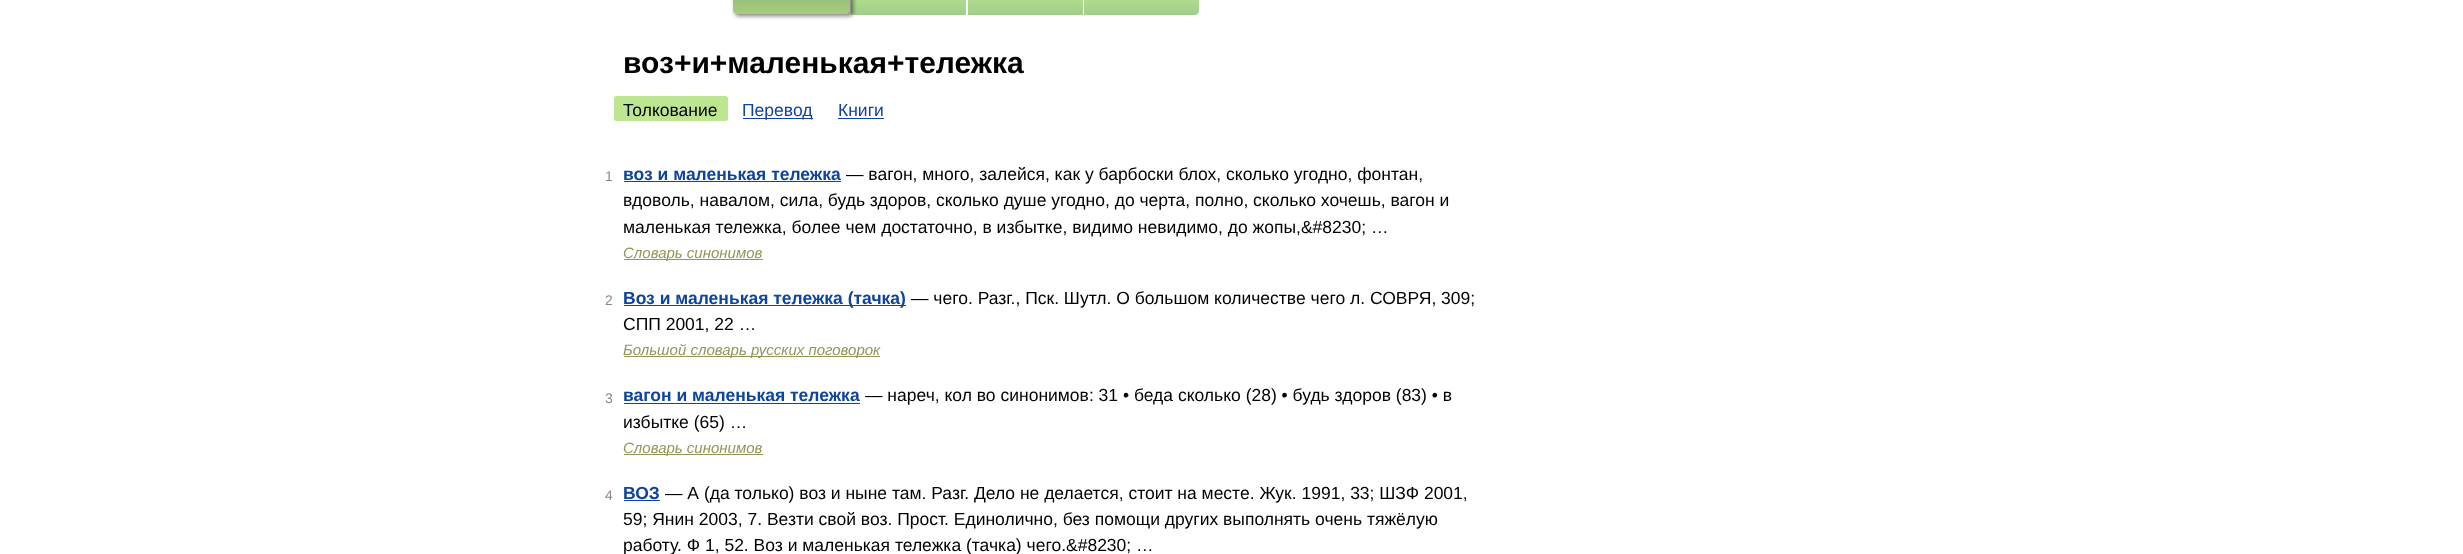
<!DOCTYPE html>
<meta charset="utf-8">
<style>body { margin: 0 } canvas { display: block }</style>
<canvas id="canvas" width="2463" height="554"></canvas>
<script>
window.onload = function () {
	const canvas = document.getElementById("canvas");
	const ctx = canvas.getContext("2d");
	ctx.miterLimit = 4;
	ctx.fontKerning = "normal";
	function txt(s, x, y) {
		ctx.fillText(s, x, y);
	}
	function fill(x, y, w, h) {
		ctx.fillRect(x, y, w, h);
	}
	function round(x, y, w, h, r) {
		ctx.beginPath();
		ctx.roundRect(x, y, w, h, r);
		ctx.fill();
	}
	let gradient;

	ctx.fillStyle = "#FFFFFF";
	fill(0, 0, 2463, 554);
	gradient = ctx.createLinearGradient(909, -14, 909, 15);
	gradient.addColorStop(0, "#BDE693");
	gradient.addColorStop(1, "#A0CE8A");
	ctx.fillStyle = gradient;
	fill(851, 0, 115, 15);
	ctx.fillStyle = "rgba(0, 0, 0, 0.5)";
	ctx.filter = "blur(2px)";
	ctx.beginPath();
	ctx.roundRect(735, -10, 118, 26, 4);
	ctx.fill();
	ctx.filter = "none";
	gradient = ctx.createLinearGradient(791, -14, 791, 14);
	gradient.addColorStop(0, "#8FB875");
	gradient.addColorStop(1, "#A7CC7D");
	ctx.fillStyle = gradient;
	ctx.beginPath();
	ctx.moveTo(733, -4);
	ctx.lineTo(850, -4);
	ctx.lineTo(850, 10);
	ctx.bezierCurveTo(850, 12, 848, 14, 846, 14);
	ctx.lineTo(737, 14);
	ctx.bezierCurveTo(735, 14, 733, 12, 733, 10);
	ctx.closePath();
	ctx.fill();
	gradient = ctx.createLinearGradient(1025, -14, 1025, 15);
	gradient.addColorStop(0, "#BDE693");
	gradient.addColorStop(1, "#A0CE8A");
	ctx.fillStyle = gradient;
	fill(968, 0, 115, 15);
	gradient = ctx.createLinearGradient(1141, -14, 1141, 15);
	gradient.addColorStop(0, "#BDE693");
	gradient.addColorStop(1, "#A0CE8A");
	ctx.fillStyle = gradient;
	ctx.beginPath();
	ctx.moveTo(1084, -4);
	ctx.lineTo(1199, -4);
	ctx.lineTo(1199, 11);
	ctx.bezierCurveTo(1199, 13, 1197, 15, 1195, 15);
	ctx.lineTo(1084, 15);
	ctx.closePath();
	ctx.fill();
	ctx.fillStyle = "#BDE693";
	round(614, 96, 114, 25, 2.5);
	ctx.fillStyle = "#0D44A0";
	fill(743, 118, 70, 1);
	fill(838, 118, 46, 1);
	fill(624, 181, 217, 1);
	ctx.fillStyle = "#939756";
	fill(624, 259, 139, 1);
	ctx.fillStyle = "#0D44A0";
	fill(624, 305, 282, 1);
	ctx.fillStyle = "#939756";
	fill(624, 356, 256, 1);
	ctx.fillStyle = "#0D44A0";
	fill(624, 403, 236, 1);
	ctx.fillStyle = "#939756";
	fill(624, 454, 139, 1);
	ctx.fillStyle = "#0D44A0";
	fill(624, 500, 36, 1);
	ctx.font = "bold 30px Liberation Sans";
	ctx.fillStyle = "#000000";
	txt("воз+и+маленькая+тележка", 623, 73);
	ctx.font = "17.5px Liberation Sans";
	txt("Толкование", 623, 116);
	ctx.fillStyle = "#0D44A0";
	txt("Перевод", 742, 116);
	txt("Книги", 838, 116);
	ctx.font = "14px Liberation Sans";
	ctx.fillStyle = "#898989";
	txt("1", 605, 181);
	ctx.font = "bold 17.5px Liberation Sans";
	ctx.fillStyle = "#0D44A0";
	txt("воз и маленькая тележка", 623, 180);
	ctx.font = "17.5px Liberation Sans";
	ctx.fillStyle = "#000000";
	txt("— вагон, много, залейся, как у барбоски блох, сколько угодно, фонтан,", 846, 180);
	txt("вдоволь, навалом, сила, будь здоров, сколько душе угодно, до черта, полно, сколько хочешь, вагон и", 623, 206);
	txt("маленькая тележка, более чем достаточно, в избытке, видимо невидимо, до жопы,&#8230; …", 623, 233);
	ctx.font = "italic 15px Liberation Sans";
	ctx.fillStyle = "#939756";
	txt("Словарь синонимов", 623, 258);
	ctx.font = "14px Liberation Sans";
	ctx.fillStyle = "#898989";
	txt("2", 605, 305);
	ctx.font = "bold 17.5px Liberation Sans";
	ctx.fillStyle = "#0D44A0";
	txt("Воз и маленькая тележка (тачка)", 623, 304);
	ctx.font = "17.5px Liberation Sans";
	ctx.fillStyle = "#000000";
	txt("— чего. Разг., Пск. Шутл. О большом количестве чего л. СОВРЯ, 309;", 911, 304);
	txt("СПП 2001, 22 …", 623, 330);
	ctx.font = "italic 15px Liberation Sans";
	ctx.fillStyle = "#939756";
	txt("Большой словарь русских поговорок", 623, 355);
	ctx.font = "14px Liberation Sans";
	ctx.fillStyle = "#898989";
	txt("3", 605, 403);
	ctx.font = "bold 17.5px Liberation Sans";
	ctx.fillStyle = "#0D44A0";
	txt("вагон и маленькая тележка", 623, 401);
	ctx.font = "17.5px Liberation Sans";
	ctx.fillStyle = "#000000";
	txt("— нареч, кол во синонимов: 31 • беда сколько (28) • будь здоров (83) • в", 865, 401);
	txt("избытке (65) …", 623, 428);
	ctx.font = "italic 15px Liberation Sans";
	ctx.fillStyle = "#939756";
	txt("Словарь синонимов", 623, 453);
	ctx.font = "14px Liberation Sans";
	ctx.fillStyle = "#898989";
	txt("4", 605, 500);
	ctx.font = "bold 17.5px Liberation Sans";
	ctx.fillStyle = "#0D44A0";
	txt("ВОЗ", 623, 499);
	ctx.font = "17.5px Liberation Sans";
	ctx.fillStyle = "#000000";
	txt("— А (да только) воз и ныне там. Разг. Дело не делается, стоит на месте. Жук. 1991, 33; ШЗФ 2001,", 665, 499);
	txt("59; Янин 2003, 7. Везти свой воз. Прост. Единолично, без помощи других выполнять очень тяжёлую", 623, 525);
	txt("работу. Ф 1, 52. Воз и маленькая тележка (тачка) чего.&#8230; …", 623, 551);
};
</script>
